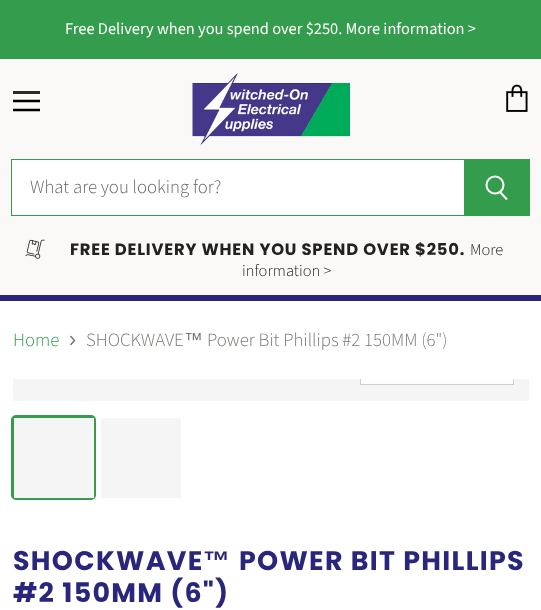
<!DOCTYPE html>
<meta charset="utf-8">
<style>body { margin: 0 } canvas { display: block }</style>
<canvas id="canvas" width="541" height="610"></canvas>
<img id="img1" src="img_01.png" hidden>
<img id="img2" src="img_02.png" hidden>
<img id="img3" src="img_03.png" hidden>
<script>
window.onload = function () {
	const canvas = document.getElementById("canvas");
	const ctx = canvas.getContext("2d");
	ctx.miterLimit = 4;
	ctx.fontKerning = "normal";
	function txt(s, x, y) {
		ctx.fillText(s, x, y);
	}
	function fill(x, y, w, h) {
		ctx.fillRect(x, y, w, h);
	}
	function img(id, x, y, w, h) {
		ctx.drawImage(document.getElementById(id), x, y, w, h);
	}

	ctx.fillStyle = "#FFFFFF";
	fill(0, 0, 541, 610);
	ctx.fillStyle = "#349C4D";
	fill(0, 0, 541, 59);
	ctx.fillStyle = "#FAF9F7";
	fill(0, 59, 541, 236);
	ctx.fillStyle = "#29267C";
	fill(0, 295, 541, 6);
	ctx.fillStyle = "#2A2A29";
	fill(13, 91, 27, 3);
	ctx.save();
	ctx.beginPath();
	ctx.rect(13, 90, 27, 23);
	ctx.clip();
	ctx.beginPath();
	ctx.moveTo(39, 101);
	ctx.lineTo(14, 101);
	ctx.moveTo(39, 110);
	ctx.lineTo(14, 110);
	ctx.strokeStyle = "#000000";
	ctx.lineWidth = 2.5;
	ctx.lineCap = "square";
	ctx.lineJoin = "round";
	ctx.stroke();
	ctx.restore();
	img("img1", 506, 84, 22, 28);
	img("img2", 192, 73, 158, 73);
	ctx.fillStyle = "#349C4D";
	fill(464, 160, 65, 55);
	fill(11, 159, 519, 1);
	fill(529, 159, 1, 57);
	fill(11, 215, 519, 1);
	ctx.beginPath();
	ctx.moveTo(507, 199.5);
	ctx.lineTo(500, 192);
	ctx.strokeStyle = "#FAF9F7";
	ctx.lineWidth = 2.1;
	ctx.stroke();
	ctx.beginPath();
	ctx.arc(495, 185, 8.5, 0, Math.PI * 2);
	ctx.stroke();
	ctx.fillStyle = "#FFFFFF";
	fill(13, 160, 451, 55);
	ctx.fillStyle = "#349C4D";
	fill(11, 159, 1, 57);
	img("img3", 25, 239, 20, 20);
	ctx.save();
	ctx.beginPath();
	ctx.moveTo(69.5, 345.5);
	ctx.lineTo(69.5, 335.5);
	ctx.lineTo(75.5, 335.5);
	ctx.lineTo(75.5, 345.5);
	ctx.closePath();
	ctx.clip();
	ctx.beginPath();
	ctx.moveTo(70.5, 345);
	ctx.lineTo(74.5, 340.5);
	ctx.lineTo(70.5, 336);
	ctx.strokeStyle = "#7C7873";
	ctx.lineWidth = 1.6;
	ctx.stroke();
	ctx.restore();
	ctx.fillStyle = "#F5F5F5";
	fill(13, 379, 516, 22);
	ctx.beginPath();
	ctx.roundRect(12.5, 416.5, 82, 82, 3.5);
	ctx.strokeStyle = "#349C4D";
	ctx.lineWidth = 3;
	ctx.stroke();
	fill(14, 418, 80, 80);
	fill(101, 418, 80, 80);
	ctx.font = "16.4px Source Sans Pro";
	ctx.fillStyle = "#FFFFFF";
	txt("Free Delivery when you spend over $250. More information >", 65, 34);
	ctx.font = "300 18.75px Source Sans Pro";
	ctx.fillStyle = "#666666";
	txt("What are you looking for?", 30, 193);
	ctx.letterSpacing = "0.8px";
	ctx.font = "bold 16.4px Poppins";
	ctx.fillStyle = "#212121";
	txt("FREE DELIVERY WHEN YOU SPEND OVER $250.", 70, 255);
	ctx.letterSpacing = "0px";
	ctx.font = "300 16.4px Source Sans Pro";
	txt("More", 470, 255);
	txt("information >", 242, 276);
	ctx.font = "300 18.75px Source Sans Pro";
	ctx.fillStyle = "#349C4D";
	txt("Home", 13, 346);
	ctx.fillStyle = "#7C7873";
	txt("SHOCKWAVE", 86, 346);
	ctx.font = "18.75px Liberation Sans";
	txt("™", 184, 346);
	ctx.font = "300 18.75px Source Sans Pro";
	txt("Power Bit Phillips #2 150MM (6\")", 207, 346);
	ctx.save();
	ctx.beginPath();
	ctx.rect(13, 379, 516, 22);
	ctx.clip();
	ctx.strokeStyle = "#D0D0D0";
	ctx.lineWidth = 1;
	ctx.strokeRect(360.5, 349.5, 153, 35);
	ctx.restore();
	ctx.fillStyle = "#FEFEFE";
	fill(361, 379, 152, 5);
	ctx.letterSpacing = "1.3px";
	ctx.font = "bold 26.9px Poppins";
	ctx.fillStyle = "#29267C";
	txt("SHOCKWAVE", 13, 570);
	ctx.font = "bold 26.9px Liberation Sans";
	txt("™", 203, 570);
	ctx.font = "bold 26.9px Poppins";
	txt("POWER BIT PHILLIPS", 239, 570);
	txt("#2 150MM (6\")", 13, 602);
};
</script>
